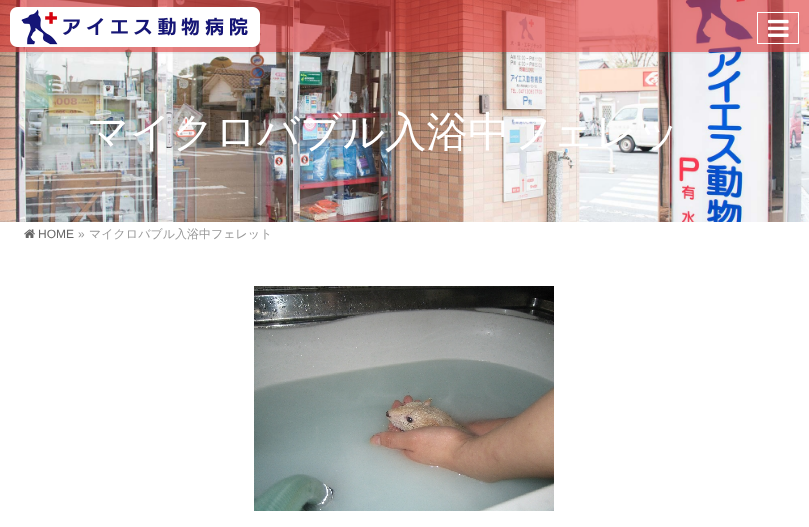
<!DOCTYPE html>
<meta charset="utf-8">
<style>body { margin: 0 } canvas { display: block }</style>
<canvas id="canvas" width="809" height="527"></canvas>
<img id="img1" src="img_03.png" hidden>
<img id="img2" src="img_01.png" hidden>
<img id="img3" src="img_02.png" hidden>
<img id="img4" src="img_04.png" hidden>
<img id="img5" src="img_05.png" hidden>
<script>
window.onload = function () {
	const canvas = document.getElementById("canvas");
	const ctx = canvas.getContext("2d");
	ctx.miterLimit = 4;
	ctx.fontKerning = "normal";
	function txt(s, x, y) {
		ctx.fillText(s, x, y);
	}
	function fill(x, y, w, h) {
		ctx.fillRect(x, y, w, h);
	}
	function img(id, x, y, w, h) {
		ctx.drawImage(document.getElementById(id), x, y, w, h);
	}

	ctx.fillStyle = "#FFFFFF";
	fill(0, 0, 809, 527);
	img("img1", 0, 0, 809, 222);
	ctx.save();
	ctx.beginPath();
	ctx.rect(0, 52, 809, 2);
	ctx.clip();
	ctx.fillStyle = "rgba(0, 0, 0, 0.1)";
	ctx.filter = "blur(1.5px)";
	ctx.beginPath();
	ctx.rect(0, 1, 809, 52);
	ctx.fill();
	ctx.filter = "none";
	ctx.restore();
	ctx.fillStyle = "rgba(221, 51, 51, 0.6)";
	fill(0, 0, 809, 52);
	img("img2", 10, 7, 250, 40);
	ctx.strokeStyle = "#FFFFFF";
	ctx.strokeRect(757.5, 12.5, 41, 31);
	img("img3", 768, 19, 21, 18);
	img("img4", 24, 229, 11, 9);
	img("img5", 254, 286, 300, 225);
	ctx.font = "500 41.6px WenQuanYi Zen Hei";
	ctx.fillStyle = "#FFFFFF";
	txt("マイクロバブル入浴中フェレッ", 87, 146);
	ctx.font = "12px Liberation Sans";
	ctx.fillStyle = "#666666";
	txt("HOME", 38, 238);
	ctx.fillStyle = "#999999";
	txt("»", 78, 238);
	ctx.font = "500 12px WenQuanYi Zen Hei";
	txt("マイクロバブル入浴中フェレット", 89, 238);
};
</script>
